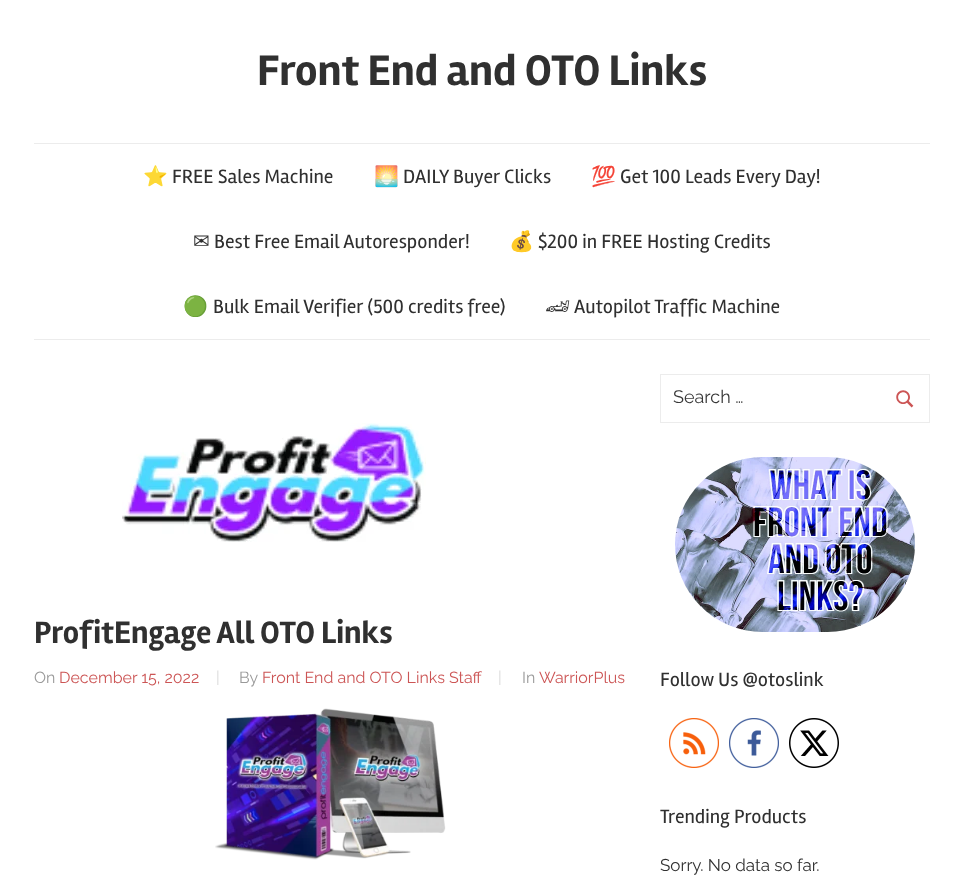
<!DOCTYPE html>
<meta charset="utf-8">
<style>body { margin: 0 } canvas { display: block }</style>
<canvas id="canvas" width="964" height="891"></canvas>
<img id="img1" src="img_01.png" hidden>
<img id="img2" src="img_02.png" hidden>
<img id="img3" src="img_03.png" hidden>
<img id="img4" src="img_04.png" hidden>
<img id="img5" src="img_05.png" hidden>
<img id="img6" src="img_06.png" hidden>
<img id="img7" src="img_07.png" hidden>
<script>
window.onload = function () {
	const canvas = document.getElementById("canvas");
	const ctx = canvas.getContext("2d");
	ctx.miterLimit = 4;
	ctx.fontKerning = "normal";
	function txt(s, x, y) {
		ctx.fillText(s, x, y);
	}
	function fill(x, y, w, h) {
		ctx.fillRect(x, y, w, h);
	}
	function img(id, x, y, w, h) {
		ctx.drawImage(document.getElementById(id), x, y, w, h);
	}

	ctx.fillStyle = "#FFFFFF";
	fill(0, 0, 964, 891);
	ctx.fillStyle = "#ECECEC";
	fill(34, 339, 896, 1);
	fill(34, 143, 896, 1);
	img("img1", 122, 423, 304, 119);
	img("img2", 215, 708, 231, 152);
	ctx.strokeStyle = "#ECECEC";
	ctx.strokeRect(660.5, 374.5, 269, 48);
	img("img3", 896, 390, 18, 18);
	img("img4", 675, 457, 240, 175);
	img("img5", 669, 718, 50, 50);
	img("img6", 729, 718, 50, 50);
	img("img7", 789, 718, 50, 50);
	ctx.font = "bold 44px Rambla";
	ctx.fillStyle = "#303030";
	txt("Front End and OTO Links", 257, 85);
	ctx.font = "20px Noto Color Emoji";
	txt("⭐", 143, 183);
	ctx.font = "20px Rambla";
	txt("FREE Sales Machine", 172, 183);
	ctx.font = "20px Noto Color Emoji";
	txt("🌅", 374, 183);
	ctx.font = "20px Rambla";
	txt("DAILY Buyer Clicks", 403, 183);
	ctx.font = "20px Noto Color Emoji";
	txt("💯", 591, 183);
	ctx.font = "20px Rambla";
	txt("Get 100 Leads Every Day!", 620, 183);
	ctx.font = "20px DejaVu Sans";
	txt("✉", 193, 248);
	ctx.font = "20px Rambla";
	txt("Best Free Email Autoresponder!", 214, 248);
	ctx.font = "20px Noto Color Emoji";
	txt("💰", 509, 248);
	ctx.font = "20px Rambla";
	txt("$200 in FREE Hosting Credits", 538, 248);
	ctx.font = "20px Noto Color Emoji";
	txt("🟢", 183, 313);
	ctx.font = "20px Rambla";
	txt("Bulk Email Verifier (500 credits free)", 213, 313);
	ctx.font = "20px Noto Emoji";
	txt("🏎", 545, 313);
	ctx.font = "20px Rambla";
	txt("Autopilot Traffic Machine", 574, 313);
	ctx.font = "bold 32px Rambla";
	txt("ProfitEngage All OTO Links", 34, 643);
	ctx.font = "16px Raleway";
	ctx.fillStyle = "#999999";
	txt("On", 34, 683);
	ctx.fillStyle = "#CC5555";
	txt("December 15, 2022", 59, 683);
	ctx.fillStyle = "#D9D9D9";
	txt("|", 216, 683);
	ctx.fillStyle = "#999999";
	txt("By", 239, 683);
	ctx.fillStyle = "#CC5555";
	txt("Front End and OTO Links Staff", 262, 683);
	ctx.fillStyle = "#D9D9D9";
	txt("|", 498, 683);
	ctx.fillStyle = "#999999";
	txt("In", 522, 683);
	ctx.fillStyle = "#CC5555";
	txt("WarriorPlus", 539, 683);
	ctx.font = "18px Raleway";
	ctx.fillStyle = "#383838";
	txt("Search …", 673, 403);
	ctx.font = "20px Rambla";
	ctx.fillStyle = "#303030";
	txt("Follow Us @otoslink", 660, 686);
	txt("Trending Products", 660, 823);
	ctx.font = "17px Raleway";
	txt("Sorry. No data so far.", 660, 871);
};
</script>
